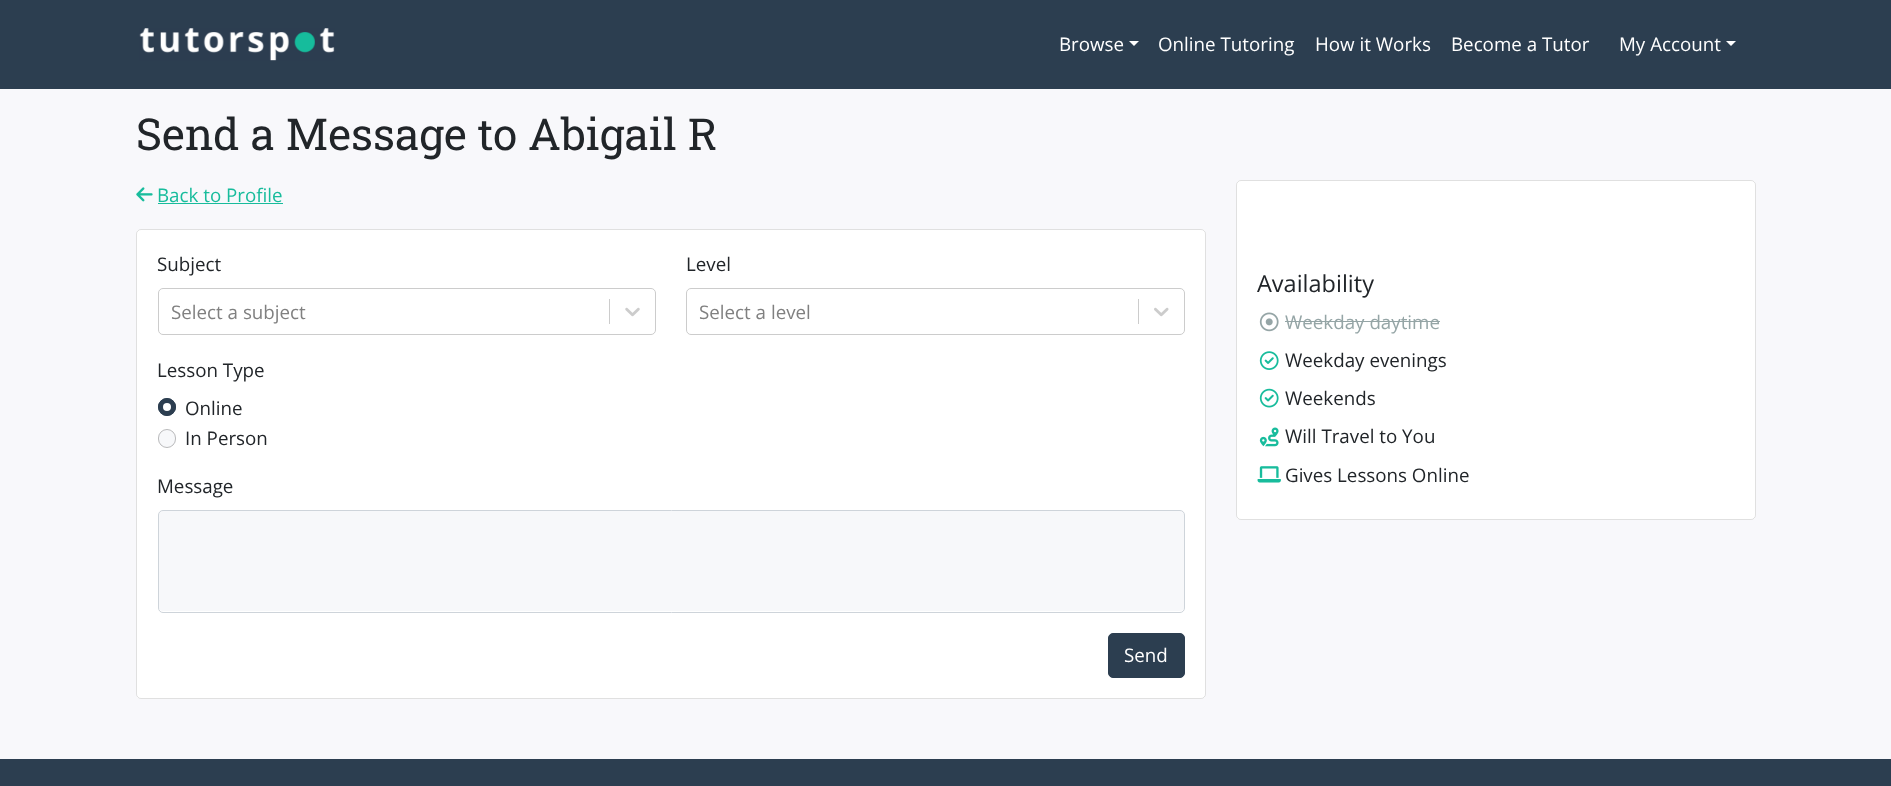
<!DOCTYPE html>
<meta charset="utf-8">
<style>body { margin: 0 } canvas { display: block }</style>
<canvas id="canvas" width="1891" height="786"></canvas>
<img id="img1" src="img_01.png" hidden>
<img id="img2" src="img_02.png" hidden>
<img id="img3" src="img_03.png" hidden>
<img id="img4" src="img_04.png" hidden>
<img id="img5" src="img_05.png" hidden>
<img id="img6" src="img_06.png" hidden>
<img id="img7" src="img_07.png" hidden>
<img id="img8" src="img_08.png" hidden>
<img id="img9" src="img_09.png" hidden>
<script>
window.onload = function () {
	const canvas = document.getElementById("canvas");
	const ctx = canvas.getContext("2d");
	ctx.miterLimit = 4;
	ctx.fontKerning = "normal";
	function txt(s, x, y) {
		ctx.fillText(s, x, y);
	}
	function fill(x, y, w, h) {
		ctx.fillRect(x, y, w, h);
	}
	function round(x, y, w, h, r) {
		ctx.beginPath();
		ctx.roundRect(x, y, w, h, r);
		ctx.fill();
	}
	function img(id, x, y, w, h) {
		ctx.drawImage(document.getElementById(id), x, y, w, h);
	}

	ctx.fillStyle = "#F8F8FB";
	fill(0, 0, 1891, 786);
	ctx.fillStyle = "#2C3E50";
	fill(0, 0, 1891, 89);
	img("img1", 139, 28, 196, 33);
	ctx.fillStyle = "#FFFFFF";
	ctx.beginPath();
	ctx.moveTo(1129, 41);
	ctx.lineTo(1139, 41);
	ctx.lineTo(1134, 46);
	ctx.closePath();
	ctx.fill();
	ctx.beginPath();
	ctx.moveTo(1726, 41);
	ctx.lineTo(1736, 41);
	ctx.lineTo(1731, 46);
	ctx.closePath();
	ctx.fill();
	img("img2", 136, 187, 17, 15);
	ctx.fillStyle = "#18BC9C";
	fill(158, 203, 125, 1);
	ctx.fillStyle = "#FFFFFF";
	round(136, 229, 1070, 470, 5);
	ctx.beginPath();
	ctx.roundRect(136.5, 229.5, 1069, 469, 4.5);
	ctx.strokeStyle = "rgba(0, 0, 0, 0.12)";
	ctx.stroke();
	ctx.beginPath();
	ctx.roundRect(158.5, 288.5, 497, 46, 4.5);
	ctx.strokeStyle = "#CCCCCC";
	ctx.stroke();
	ctx.fillStyle = "#CCCCCC";
	fill(609, 299, 1, 25);
	img("img3", 625, 307, 15, 10);
	ctx.beginPath();
	ctx.roundRect(686.5, 288.5, 498, 46, 4.5);
	ctx.stroke();
	fill(1138, 299, 1, 25);
	img("img4", 1154, 307, 15, 10);
	ctx.fillStyle = "#2C3E50";
	ctx.beginPath();
	ctx.arc(167, 407, 9, 0, Math.PI * 2);
	ctx.fill();
	ctx.fillStyle = "#FFFFFF";
	ctx.beginPath();
	ctx.arc(167, 407, 4, 0, Math.PI * 2);
	ctx.fill();
	ctx.beginPath();
	ctx.arc(167, 407, 8.5, 0, Math.PI * 2);
	ctx.strokeStyle = "#2C3E50";
	ctx.stroke();
	ctx.fillStyle = "#F7F8FA";
	round(158, 429, 18, 19, 9);
	ctx.beginPath();
	ctx.roundRect(158.5, 429.5, 17, 18, 8.5);
	ctx.strokeStyle = "rgba(0, 0, 0, 0.25)";
	ctx.stroke();
	round(159, 511, 1025, 100, 4);
	ctx.beginPath();
	ctx.roundRect(158.5, 510.5, 1026, 102, 4.5);
	ctx.strokeStyle = "#CED4DA";
	ctx.stroke();
	ctx.fillStyle = "#2C3E50";
	ctx.beginPath();
	ctx.roundRect(1108.5, 633.5, 76, 44, 4.5);
	ctx.fill();
	ctx.strokeStyle = "#2C3E50";
	ctx.stroke();
	ctx.fillStyle = "#FFFFFF";
	round(1236, 180, 520, 340, 5);
	ctx.beginPath();
	ctx.roundRect(1236.5, 180.5, 519, 339, 4.5);
	ctx.strokeStyle = "rgba(0, 0, 0, 0.12)";
	ctx.stroke();
	img("img5", 1259, 312, 20, 20);
	ctx.fillStyle = "#95A5A6";
	fill(1285, 321, 155, 1);
	img("img6", 1259, 351, 20, 19);
	img("img7", 1259, 388, 20, 20);
	img("img8", 1259, 427, 20, 20);
	img("img9", 1257, 466, 24, 17);
	ctx.fillStyle = "#2C3E50";
	fill(0, 759, 1891, 27);
	ctx.font = "18.75px Open Sans";
	ctx.fillStyle = "#FFFFFF";
	txt("Browse", 1059, 51);
	txt("Online Tutoring", 1158, 51);
	txt("How it Works", 1315, 51);
	txt("Become a Tutor", 1451, 51);
	txt("My Account", 1619, 51);
	ctx.font = "44px Roboto Slab";
	ctx.fillStyle = "#212529";
	txt("Send a Message to Abigail R", 136, 150);
	ctx.font = "18.75px Open Sans";
	ctx.fillStyle = "#18BC9C";
	txt("Back to Profile", 157, 202);
	ctx.fillStyle = "#212529";
	txt("Subject", 157, 271);
	ctx.fillStyle = "#808080";
	txt("Select a subject", 171, 319);
	ctx.fillStyle = "#212529";
	txt("Level", 686, 271);
	ctx.fillStyle = "#808080";
	txt("Select a level", 699, 319);
	ctx.fillStyle = "#212529";
	txt("Lesson Type", 157, 377);
	txt("Online", 185, 415);
	txt("In Person", 185, 445);
	txt("Message", 157, 493);
	ctx.fillStyle = "#FFFFFF";
	txt("Send", 1124, 662);
	ctx.font = "23.5px Open Sans";
	ctx.fillStyle = "#212529";
	txt("Availability", 1257, 292);
	ctx.font = "18.75px Open Sans";
	ctx.fillStyle = "#95A5A6";
	txt("Weekday daytime", 1285, 329);
	ctx.fillStyle = "#212529";
	txt("Weekday evenings", 1285, 367);
	txt("Weekends", 1285, 405);
	txt("Will Travel to You", 1285, 443);
	txt("Gives Lessons Online", 1285, 482);
};
</script>
